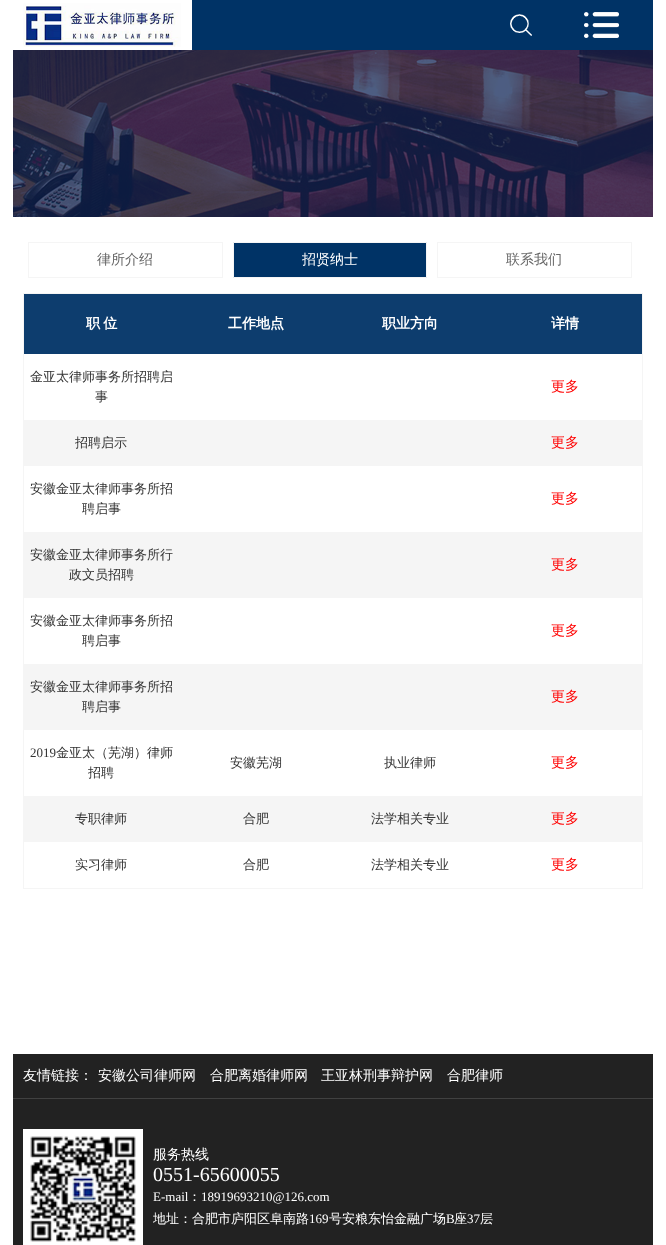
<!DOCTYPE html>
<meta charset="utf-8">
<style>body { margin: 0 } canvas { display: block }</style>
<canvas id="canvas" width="666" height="1245"></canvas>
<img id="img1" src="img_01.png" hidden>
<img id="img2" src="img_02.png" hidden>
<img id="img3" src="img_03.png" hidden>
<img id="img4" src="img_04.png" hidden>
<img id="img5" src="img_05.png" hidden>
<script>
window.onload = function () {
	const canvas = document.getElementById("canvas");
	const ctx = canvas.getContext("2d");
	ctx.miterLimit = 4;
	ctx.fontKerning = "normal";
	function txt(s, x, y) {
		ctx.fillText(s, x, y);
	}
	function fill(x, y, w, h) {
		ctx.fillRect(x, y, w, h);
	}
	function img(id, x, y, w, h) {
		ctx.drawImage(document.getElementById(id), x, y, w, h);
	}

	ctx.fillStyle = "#FFFFFF";
	fill(0, 0, 666, 1245);
	ctx.fillStyle = "#003366";
	fill(192, 0, 461, 50);
	img("img1", 13, 0, 179, 50);
	img("img2", 510, 14, 22, 22);
	img("img3", 584, 12, 35, 26);
	img("img4", 13, 50, 640, 167);
	ctx.strokeStyle = "#F5F5F5";
	ctx.strokeRect(28.5, 242.5, 194, 35);
	ctx.beginPath();
	ctx.rect(233.5, 242.5, 193, 35);
	ctx.fill();
	ctx.stroke();
	ctx.strokeRect(437.5, 242.5, 194, 35);
	ctx.fillStyle = "#F5F5F5";
	fill(23, 293, 620, 596);
	ctx.fillStyle = "#0D3D6E";
	fill(24, 294, 618, 60);
	ctx.fillStyle = "#FFFFFF";
	fill(24, 354, 618, 66);
	fill(24, 466, 618, 66);
	fill(24, 598, 618, 66);
	fill(24, 730, 618, 66);
	fill(24, 842, 618, 46);
	ctx.fillStyle = "#222222";
	fill(13, 1054, 640, 191);
	ctx.fillStyle = "#414141";
	fill(13, 1098, 640, 1);
	img("img5", 23, 1129, 120, 116);
	ctx.font = "500 14px WenQuanYi Zen Hei";
	ctx.fillStyle = "#666666";
	txt("律所介绍", 97, 264);
	ctx.fillStyle = "#FFFFFF";
	txt("招贤纳士", 302, 264);
	ctx.fillStyle = "#666666";
	txt("联系我们", 506, 264);
	ctx.wordSpacing = "-1px";
	ctx.font = "bold 14px WenQuanYi Zen Hei";
	ctx.fillStyle = "#FFFFFF";
	txt("职 位", 86, 328);
	ctx.wordSpacing = "0px";
	txt("工作地点", 228, 328);
	txt("职业方向", 382, 328);
	txt("详情", 551, 328);
	ctx.font = "500 13px WenQuanYi Zen Hei";
	ctx.fillStyle = "#333333";
	txt("金亚太律师事务所招聘启", 30, 381);
	txt("事", 95, 401);
	ctx.font = "500 14px WenQuanYi Zen Hei";
	ctx.fillStyle = "#FF0000";
	txt("更多", 551, 391);
	ctx.font = "500 13px WenQuanYi Zen Hei";
	ctx.fillStyle = "#333333";
	txt("招聘启示", 75, 447);
	ctx.font = "500 14px WenQuanYi Zen Hei";
	ctx.fillStyle = "#FF0000";
	txt("更多", 551, 447);
	ctx.font = "500 13px WenQuanYi Zen Hei";
	ctx.fillStyle = "#333333";
	txt("安徽金亚太律师事务所招", 30, 493);
	txt("聘启事", 82, 513);
	ctx.font = "500 14px WenQuanYi Zen Hei";
	ctx.fillStyle = "#FF0000";
	txt("更多", 551, 503);
	ctx.font = "500 13px WenQuanYi Zen Hei";
	ctx.fillStyle = "#333333";
	txt("安徽金亚太律师事务所行", 30, 559);
	txt("政文员招聘", 69, 579);
	ctx.font = "500 14px WenQuanYi Zen Hei";
	ctx.fillStyle = "#FF0000";
	txt("更多", 551, 569);
	ctx.font = "500 13px WenQuanYi Zen Hei";
	ctx.fillStyle = "#333333";
	txt("安徽金亚太律师事务所招", 30, 625);
	txt("聘启事", 82, 645);
	ctx.font = "500 14px WenQuanYi Zen Hei";
	ctx.fillStyle = "#FF0000";
	txt("更多", 551, 635);
	ctx.font = "500 13px WenQuanYi Zen Hei";
	ctx.fillStyle = "#333333";
	txt("安徽金亚太律师事务所招", 30, 691);
	txt("聘启事", 82, 711);
	ctx.font = "500 14px WenQuanYi Zen Hei";
	ctx.fillStyle = "#FF0000";
	txt("更多", 551, 701);
	ctx.font = "13px Liberation Serif";
	ctx.fillStyle = "#333333";
	txt("2019", 30, 757);
	ctx.font = "500 13px WenQuanYi Zen Hei";
	txt("金亚太（芜湖）律师", 56, 757);
	txt("招聘", 88, 777);
	txt("安徽芜湖", 230, 767);
	txt("执业律师", 384, 767);
	ctx.font = "500 14px WenQuanYi Zen Hei";
	ctx.fillStyle = "#FF0000";
	txt("更多", 551, 767);
	ctx.font = "500 13px WenQuanYi Zen Hei";
	ctx.fillStyle = "#333333";
	txt("专职律师", 75, 823);
	txt("合肥", 243, 823);
	txt("法学相关专业", 371, 823);
	ctx.font = "500 14px WenQuanYi Zen Hei";
	ctx.fillStyle = "#FF0000";
	txt("更多", 551, 823);
	ctx.font = "500 13px WenQuanYi Zen Hei";
	ctx.fillStyle = "#333333";
	txt("实习律师", 75, 869);
	txt("合肥", 243, 869);
	txt("法学相关专业", 371, 869);
	ctx.font = "500 14px WenQuanYi Zen Hei";
	ctx.fillStyle = "#FF0000";
	txt("更多", 551, 869);
	ctx.fillStyle = "#FFFFFF";
	txt("友情链接：", 23, 1080);
	txt("安徽公司律师网", 98, 1080);
	txt("合肥离婚律师网", 210, 1080);
	txt("王亚林刑事辩护网", 321, 1080);
	txt("合肥律师", 447, 1080);
	txt("服务热线", 153, 1159);
	ctx.font = "20px Liberation Serif";
	txt("0551-65600055", 153, 1181);
	ctx.font = "13px Liberation Serif";
	txt("E-mail", 153, 1201);
	ctx.font = "500 13px WenQuanYi Zen Hei";
	txt("：", 188, 1201);
	ctx.font = "13px Liberation Serif";
	txt("18919693210@126.com", 201, 1201);
	ctx.font = "500 13px WenQuanYi Zen Hei";
	txt("地址：合肥市庐阳区阜南路", 153, 1223);
	ctx.font = "13px Liberation Serif";
	txt("169", 309, 1223);
	ctx.font = "500 13px WenQuanYi Zen Hei";
	txt("号安粮东怡金融广场", 329, 1223);
	ctx.font = "13px Liberation Serif";
	txt("B", 446, 1223);
	ctx.font = "500 13px WenQuanYi Zen Hei";
	txt("座", 454, 1223);
	ctx.font = "13px Liberation Serif";
	txt("37", 467, 1223);
	ctx.font = "500 13px WenQuanYi Zen Hei";
	txt("层", 480, 1223);
};
</script>
